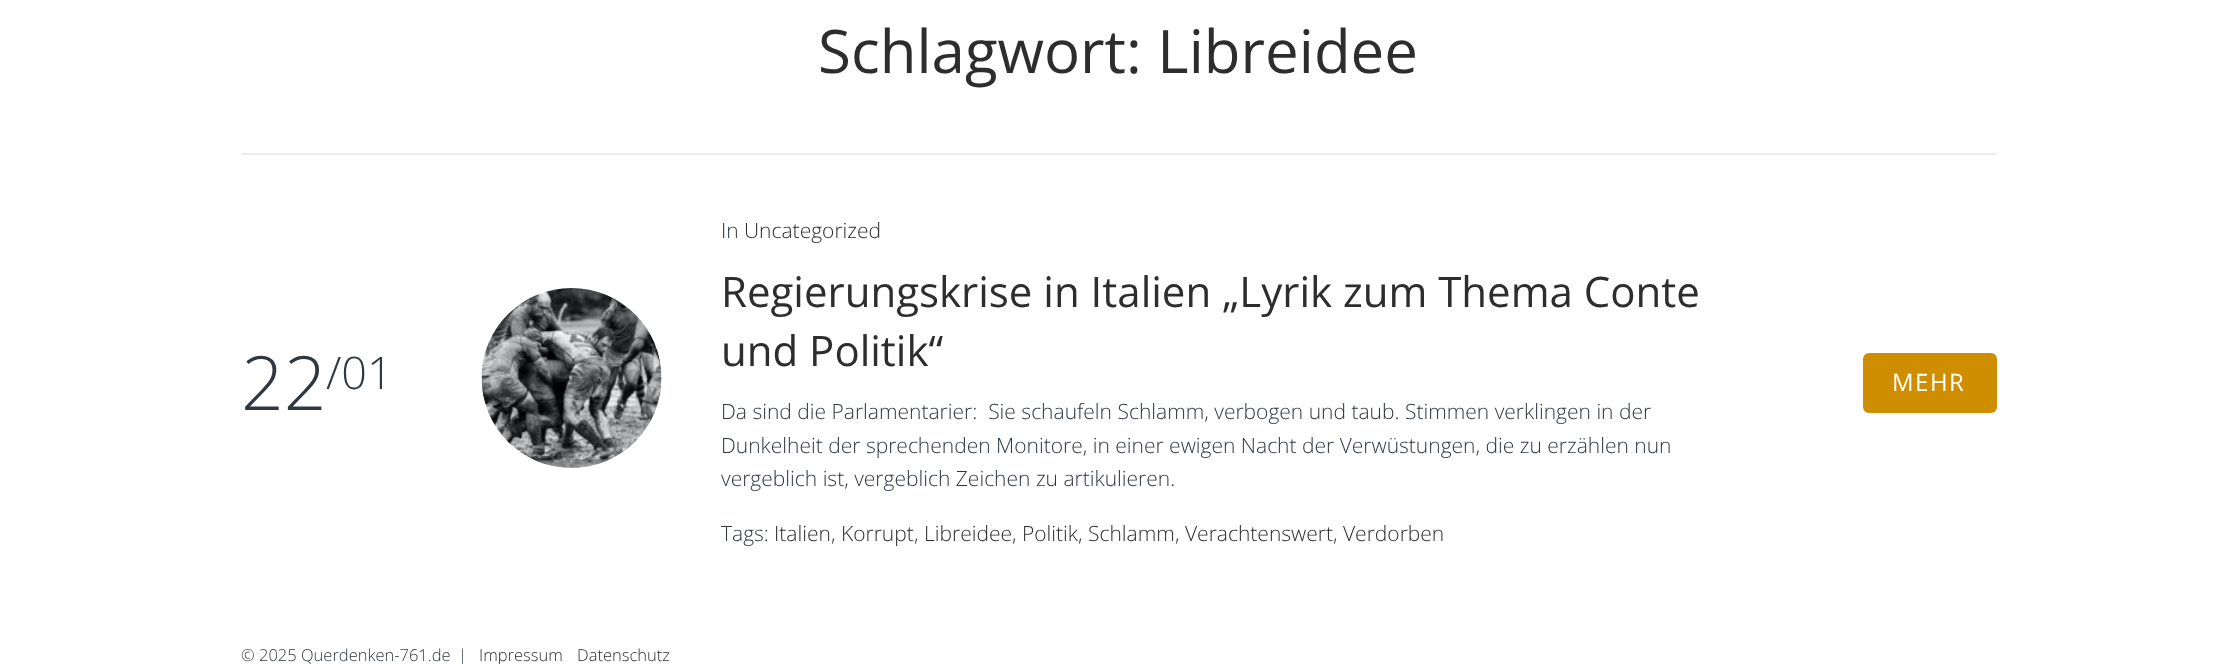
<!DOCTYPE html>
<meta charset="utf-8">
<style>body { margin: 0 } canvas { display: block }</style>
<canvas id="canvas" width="2236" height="664"></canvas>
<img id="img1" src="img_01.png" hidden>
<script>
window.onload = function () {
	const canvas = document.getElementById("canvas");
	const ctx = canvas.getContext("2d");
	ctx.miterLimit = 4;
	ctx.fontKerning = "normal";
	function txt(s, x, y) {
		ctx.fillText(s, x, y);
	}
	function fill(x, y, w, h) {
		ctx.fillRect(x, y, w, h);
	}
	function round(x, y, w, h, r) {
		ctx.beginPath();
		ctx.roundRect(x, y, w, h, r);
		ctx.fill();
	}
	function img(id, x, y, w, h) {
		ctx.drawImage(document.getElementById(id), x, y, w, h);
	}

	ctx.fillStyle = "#FFFFFF";
	fill(0, 0, 2236, 664);
	ctx.fillStyle = "#EBECED";
	fill(242, 153, 1755, 2);
	img("img1", 481, 288, 181, 180);
	ctx.fillStyle = "#CF8E00";
	round(1863, 353, 134, 60, 6);
	ctx.font = "60px Open Sans";
	ctx.fillStyle = "#2D2D2D";
	txt("Schlagwort: Libreidee", 818, 73);
	ctx.font = "300 75px Open Sans";
	ctx.fillStyle = "#30373F";
	txt("22", 241, 410);
	ctx.font = "300 45px Open Sans";
	txt("/01", 326, 389);
	ctx.font = "300 21px Open Sans";
	txt("In", 721, 238);
	ctx.fillStyle = "#2D2D2D";
	txt("Uncategorized", 744, 238);
	ctx.font = "42px Open Sans";
	txt("Regierungskrise in Italien „Lyrik zum Thema Conte", 721, 307);
	txt("und Politik“", 721, 366);
	ctx.font = "300 21px Open Sans";
	ctx.fillStyle = "#30373F";
	txt("Da sind die Parlamentarier:  Sie schaufeln Schlamm, verbogen und taub. Stimmen verklingen in der", 721, 419);
	txt("Dunkelheit der sprechenden Monitore, in einer ewigen Nacht der Verwüstungen, die zu erzählen nun", 721, 453);
	txt("vergeblich ist, vergeblich Zeichen zu artikulieren.", 721, 486);
	txt("Tags:", 721, 541);
	ctx.fillStyle = "#2D2D2D";
	txt("Italien", 774, 541);
	ctx.fillStyle = "#30373F";
	txt(",", 831, 541);
	ctx.fillStyle = "#2D2D2D";
	txt("Korrupt", 841, 541);
	ctx.fillStyle = "#30373F";
	txt(",", 914, 541);
	ctx.fillStyle = "#2D2D2D";
	txt("Libreidee", 924, 541);
	ctx.fillStyle = "#30373F";
	txt(",", 1012, 541);
	ctx.fillStyle = "#2D2D2D";
	txt("Politik", 1022, 541);
	ctx.fillStyle = "#30373F";
	txt(",", 1078, 541);
	ctx.fillStyle = "#2D2D2D";
	txt("Schlamm", 1088, 541);
	ctx.fillStyle = "#30373F";
	txt(",", 1175, 541);
	ctx.fillStyle = "#2D2D2D";
	txt("Verachtenswert", 1185, 541);
	ctx.fillStyle = "#30373F";
	txt(",", 1333, 541);
	ctx.fillStyle = "#2D2D2D";
	txt("Verdorben", 1343, 541);
	ctx.letterSpacing = "1.5px";
	ctx.font = "24px Open Sans";
	ctx.fillStyle = "#FFFFFF";
	txt("MEHR", 1892, 391);
	ctx.letterSpacing = "0px";
	ctx.font = "300 16.5px Open Sans";
	ctx.fillStyle = "#30373F";
	txt("© 2025 Querdenken-761.de", 241, 661);
	txt("|", 458, 661);
	ctx.fillStyle = "#2D2D2D";
	txt("Impressum", 479, 661);
	txt("Datenschutz", 577, 661);
};
</script>
